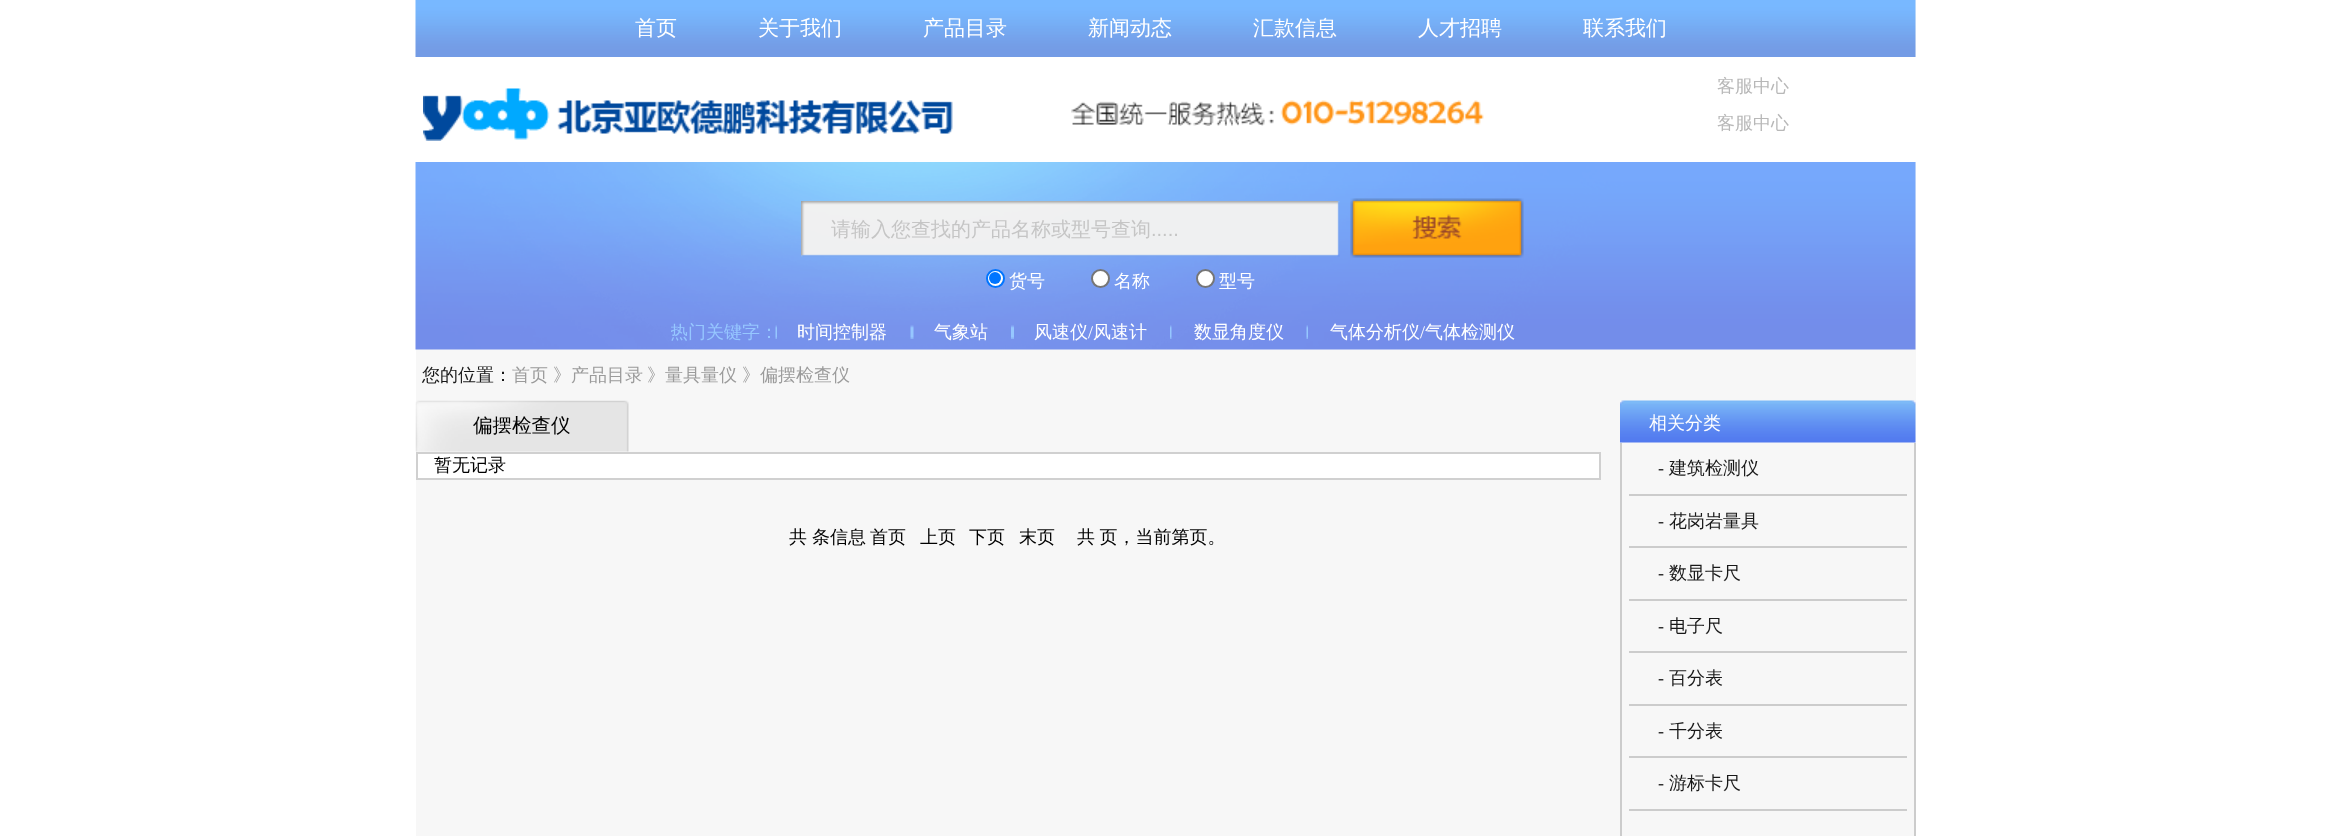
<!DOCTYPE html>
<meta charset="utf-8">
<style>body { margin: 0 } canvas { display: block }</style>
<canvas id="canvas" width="2329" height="836"></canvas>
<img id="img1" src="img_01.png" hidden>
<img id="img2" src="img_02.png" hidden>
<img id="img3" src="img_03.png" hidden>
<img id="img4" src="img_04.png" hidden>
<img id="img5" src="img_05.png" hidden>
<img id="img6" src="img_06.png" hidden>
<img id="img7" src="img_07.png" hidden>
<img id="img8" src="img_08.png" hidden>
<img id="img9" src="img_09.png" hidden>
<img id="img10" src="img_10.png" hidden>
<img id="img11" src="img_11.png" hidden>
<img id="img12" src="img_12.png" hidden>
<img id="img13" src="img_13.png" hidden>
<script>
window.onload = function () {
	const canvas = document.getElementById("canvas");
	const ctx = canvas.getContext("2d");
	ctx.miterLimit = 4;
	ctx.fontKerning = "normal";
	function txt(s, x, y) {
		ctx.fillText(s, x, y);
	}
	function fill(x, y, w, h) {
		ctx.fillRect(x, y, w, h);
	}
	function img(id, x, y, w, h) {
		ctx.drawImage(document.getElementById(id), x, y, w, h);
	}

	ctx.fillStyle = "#FFFFFF";
	fill(0, 0, 2329, 836);
	ctx.fillStyle = "#F7F7F7";
	fill(416, 0, 1500, 836);
	img("img1", 415, 0, 1501, 57);
	ctx.fillStyle = "#FFFFFF";
	fill(416, 57, 1500, 105);
	img("img2", 423, 88, 530, 53);
	img("img3", 1071, 100, 413, 26);
	img("img4", 415, 162, 1501, 188);
	img("img5", 801, 201, 539, 56);
	img("img6", 1350, 198, 174, 60);
	ctx.beginPath();
	ctx.arc(995.5, 278.5, 8.5, 0, Math.PI * 2);
	ctx.fill();
	ctx.strokeStyle = "#0075FF";
	ctx.lineWidth = 2;
	ctx.stroke();
	ctx.fillStyle = "#0075FF";
	ctx.beginPath();
	ctx.arc(995, 278, 6, 0, Math.PI * 2);
	ctx.fill();
	ctx.fillStyle = "#FFFFFF";
	ctx.beginPath();
	ctx.arc(1100.5, 278.5, 8.5, 0, Math.PI * 2);
	ctx.fill();
	ctx.strokeStyle = "#767676";
	ctx.stroke();
	ctx.beginPath();
	ctx.arc(1205.5, 278.5, 8.5, 0, Math.PI * 2);
	ctx.fill();
	ctx.stroke();
	img("img7", 775, 325, 2, 14);
	img("img8", 910, 325, 4, 14);
	img("img9", 1011, 325, 3, 14);
	img("img10", 1170, 325, 2, 14);
	img("img11", 1306, 325, 2, 14);
	img("img12", 415, 400, 214, 52);
	ctx.beginPath();
	ctx.rect(417, 453, 1183, 26);
	ctx.fill();
	ctx.strokeStyle = "#D0D0D0";
	ctx.stroke();
	img("img13", 1620, 400, 296, 43);
	ctx.fillStyle = "#CCCCCC";
	fill(1914, 443, 2, 393);
	fill(1620, 443, 2, 393);
	fill(1629, 494, 278, 2);
	fill(1629, 546, 278, 2);
	fill(1629, 599, 278, 2);
	fill(1629, 651, 278, 2);
	fill(1629, 704, 278, 2);
	fill(1629, 756, 278, 2);
	fill(1629, 809, 278, 2);
	ctx.font = "500 21px WenQuanYi Zen Hei";
	ctx.fillStyle = "#FFFFFF";
	txt("首页", 635, 35);
	txt("关于我们", 758, 35);
	txt("产品目录", 923, 35);
	txt("新闻动态", 1088, 35);
	txt("汇款信息", 1253, 35);
	txt("人才招聘", 1418, 35);
	txt("联系我们", 1583, 35);
	ctx.font = "500 18px WenQuanYi Zen Hei";
	ctx.fillStyle = "#B8B8B8";
	txt("客服中心", 1717, 92);
	txt("客服中心", 1717, 129);
	ctx.font = "500 20px WenQuanYi Zen Hei";
	ctx.fillStyle = "#C5C5C5";
	txt("请输入您查找的产品名称或型号查询", 831, 236);
	ctx.font = "20px Liberation Sans";
	txt(".....", 1151, 236);
	ctx.font = "500 18px WenQuanYi Zen Hei";
	ctx.fillStyle = "#FFFFFF";
	txt("货号", 1009, 287);
	txt("名称", 1114, 287);
	txt("型号", 1219, 287);
	ctx.save();
	ctx.beginPath();
	ctx.rect(671, 320, 990, 21);
	ctx.clip();
	ctx.fillStyle = "#96C7FF";
	txt("热门关键字：", 670, 338);
	ctx.restore();
	txt("时间控制器", 797, 338);
	txt("气象站", 934, 338);
	txt("风速仪", 1034, 338);
	ctx.font = "18px Liberation Serif";
	txt("/", 1088, 338);
	ctx.font = "500 18px WenQuanYi Zen Hei";
	txt("风速计", 1093, 338);
	txt("数显角度仪", 1194, 338);
	txt("气体分析仪", 1330, 338);
	ctx.font = "18px Liberation Serif";
	txt("/", 1420, 338);
	ctx.font = "500 18px WenQuanYi Zen Hei";
	txt("气体检测仪", 1425, 338);
	ctx.fillStyle = "#181818";
	txt("您的位置：", 422, 381);
	ctx.fillStyle = "#9B9B9B";
	txt("首页", 512, 381);
	txt("》产品目录", 553, 381);
	txt("》量具量仪", 647, 381);
	txt("》偏摆检查仪", 742, 381);
	ctx.font = "500 19.5px WenQuanYi Zen Hei";
	ctx.fillStyle = "#000000";
	txt("偏摆检查仪", 473, 432);
	ctx.font = "500 18px WenQuanYi Zen Hei";
	txt("暂无记录", 434, 471);
	txt("共", 789, 543);
	txt("条信息", 812, 543);
	txt("首页", 870, 543);
	txt("上页", 920, 543);
	txt("下页", 969, 543);
	txt("末页", 1019, 543);
	ctx.wordSpacing = "-1px";
	txt("共 页，当前第页。", 1077, 543);
	ctx.wordSpacing = "0px";
	ctx.fillStyle = "#FFFFFF";
	txt("相关分类", 1649, 429);
	ctx.font = "18px Liberation Serif";
	ctx.fillStyle = "#181818";
	txt("-", 1658, 474);
	ctx.font = "500 18px WenQuanYi Zen Hei";
	txt("建筑检测仪", 1669, 474);
	ctx.font = "18px Liberation Serif";
	txt("-", 1658, 527);
	ctx.font = "500 18px WenQuanYi Zen Hei";
	txt("花岗岩量具", 1669, 527);
	ctx.font = "18px Liberation Serif";
	txt("-", 1658, 579);
	ctx.font = "500 18px WenQuanYi Zen Hei";
	txt("数显卡尺", 1669, 579);
	ctx.font = "18px Liberation Serif";
	txt("-", 1658, 632);
	ctx.font = "500 18px WenQuanYi Zen Hei";
	txt("电子尺", 1669, 632);
	ctx.font = "18px Liberation Serif";
	txt("-", 1658, 684);
	ctx.font = "500 18px WenQuanYi Zen Hei";
	txt("百分表", 1669, 684);
	ctx.font = "18px Liberation Serif";
	txt("-", 1658, 737);
	ctx.font = "500 18px WenQuanYi Zen Hei";
	txt("千分表", 1669, 737);
	ctx.font = "18px Liberation Serif";
	txt("-", 1658, 789);
	ctx.font = "500 18px WenQuanYi Zen Hei";
	txt("游标卡尺", 1669, 789);
};
</script>
